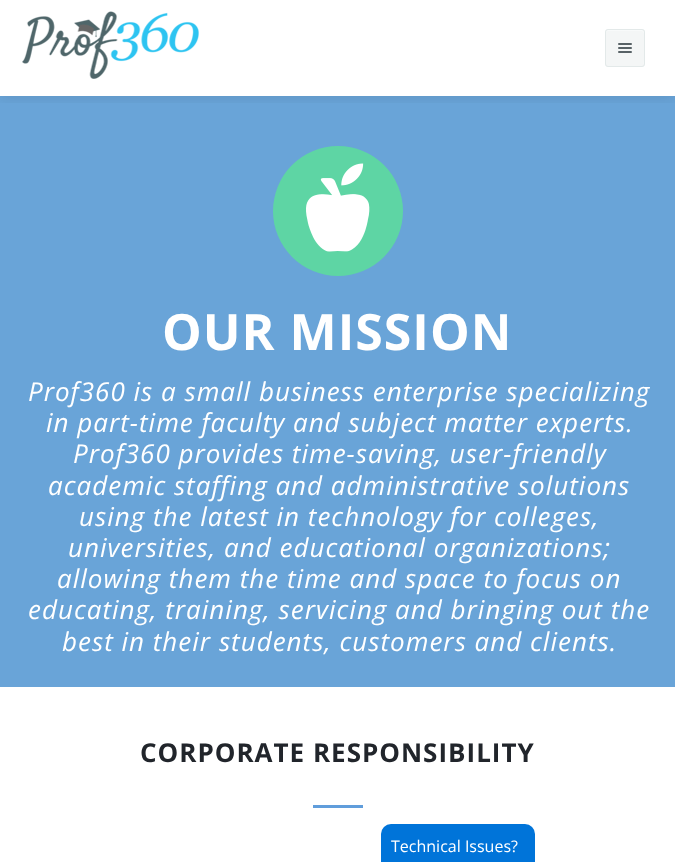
<!DOCTYPE html>
<meta charset="utf-8">
<style>body { margin: 0 } canvas { display: block }</style>
<canvas id="canvas" width="675" height="862"></canvas>
<img id="img1" src="img_01.png" hidden>
<img id="img2" src="img_02.png" hidden>
<img id="img3" src="img_03.png" hidden>
<script>
window.onload = function () {
	const canvas = document.getElementById("canvas");
	const ctx = canvas.getContext("2d");
	ctx.miterLimit = 4;
	ctx.fontKerning = "normal";
	function txt(s, x, y) {
		ctx.fillText(s, x, y);
	}
	function fill(x, y, w, h) {
		ctx.fillRect(x, y, w, h);
	}
	function round(x, y, w, h, r) {
		ctx.beginPath();
		ctx.roundRect(x, y, w, h, r);
		ctx.fill();
	}
	function img(id, x, y, w, h) {
		ctx.drawImage(document.getElementById(id), x, y, w, h);
	}

	ctx.fillStyle = "#FFFFFF";
	fill(0, 0, 675, 862);
	ctx.fillStyle = "#69A4D8";
	fill(0, 96, 675, 591);
	ctx.save();
	ctx.beginPath();
	ctx.rect(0, 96, 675, 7);
	ctx.clip();
	ctx.fillStyle = "rgba(0, 0, 0, 0.1)";
	ctx.filter = "blur(7.5px)";
	ctx.beginPath();
	ctx.rect(0, 1, 675, 96);
	ctx.fill();
	ctx.filter = "none";
	ctx.restore();
	img("img1", 22, 11, 177, 68);
	ctx.fillStyle = "#F4F6F6";
	round(605, 29, 40, 38, 3);
	ctx.fillStyle = "#F8FAFA";
	ctx.beginPath();
	ctx.moveTo(608, 31);
	ctx.lineTo(642, 31);
	ctx.lineTo(644, 33);
	ctx.lineTo(644, 32);
	ctx.bezierCurveTo(644, 31, 643, 30, 642, 30);
	ctx.lineTo(608, 30);
	ctx.bezierCurveTo(607, 30, 606, 31, 606, 32);
	ctx.closePath();
	ctx.moveTo(644, 60);
	ctx.lineTo(643.5, 65);
	ctx.bezierCurveTo(644.5, 63.5, 644, 61.5, 644, 60);
	ctx.closePath();
	ctx.fill("evenodd");
	ctx.beginPath();
	ctx.roundRect(605.5, 29.5, 39, 37, 2.5);
	ctx.strokeStyle = "#E3E9E9";
	ctx.stroke();
	img("img2", 618, 43, 14, 10);
	ctx.fillStyle = "#5ED5A4";
	ctx.beginPath();
	ctx.arc(338, 211, 65, 0, Math.PI * 2);
	ctx.fill();
	img("img3", 306, 163, 64, 89);
	ctx.fillStyle = "#609DDB";
	fill(313, 805, 50, 3);
	ctx.fillStyle = "#0074D9";
	ctx.beginPath();
	ctx.roundRect(381, 824, 154, 38, [10, 10, 0, 0]);
	ctx.fill();
	ctx.letterSpacing = "1px";
	ctx.font = "bold 50px Open Sans";
	ctx.fillStyle = "#FFFFFF";
	txt("OUR MISSION", 162, 350);
	ctx.font = "italic 26px Open Sans";
	txt("Prof360 is a small business enterprise specializing", 28, 401);
	txt("in part-time faculty and subject matter experts.", 46, 432);
	txt("Prof360 provides time-saving, user-friendly", 73, 463);
	txt("academic staffing and administrative solutions", 48, 495);
	txt("using the latest in technology for colleges,", 79, 526);
	txt("universities, and educational organizations;", 68, 557);
	txt("allowing them the time and space to focus on", 57, 588);
	txt("educating, training, servicing and bringing out the", 28, 619);
	txt("best in their students, customers and clients.", 62, 651);
	ctx.font = "bold 26px Open Sans";
	ctx.fillStyle = "#21252B";
	txt("CORPORATE RESPONSIBILITY", 140, 762);
	ctx.letterSpacing = "0px";
	ctx.font = "16px Open Sans";
	ctx.fillStyle = "#FFFFFF";
	txt("Technical Issues?", 391, 852);
};
</script>
